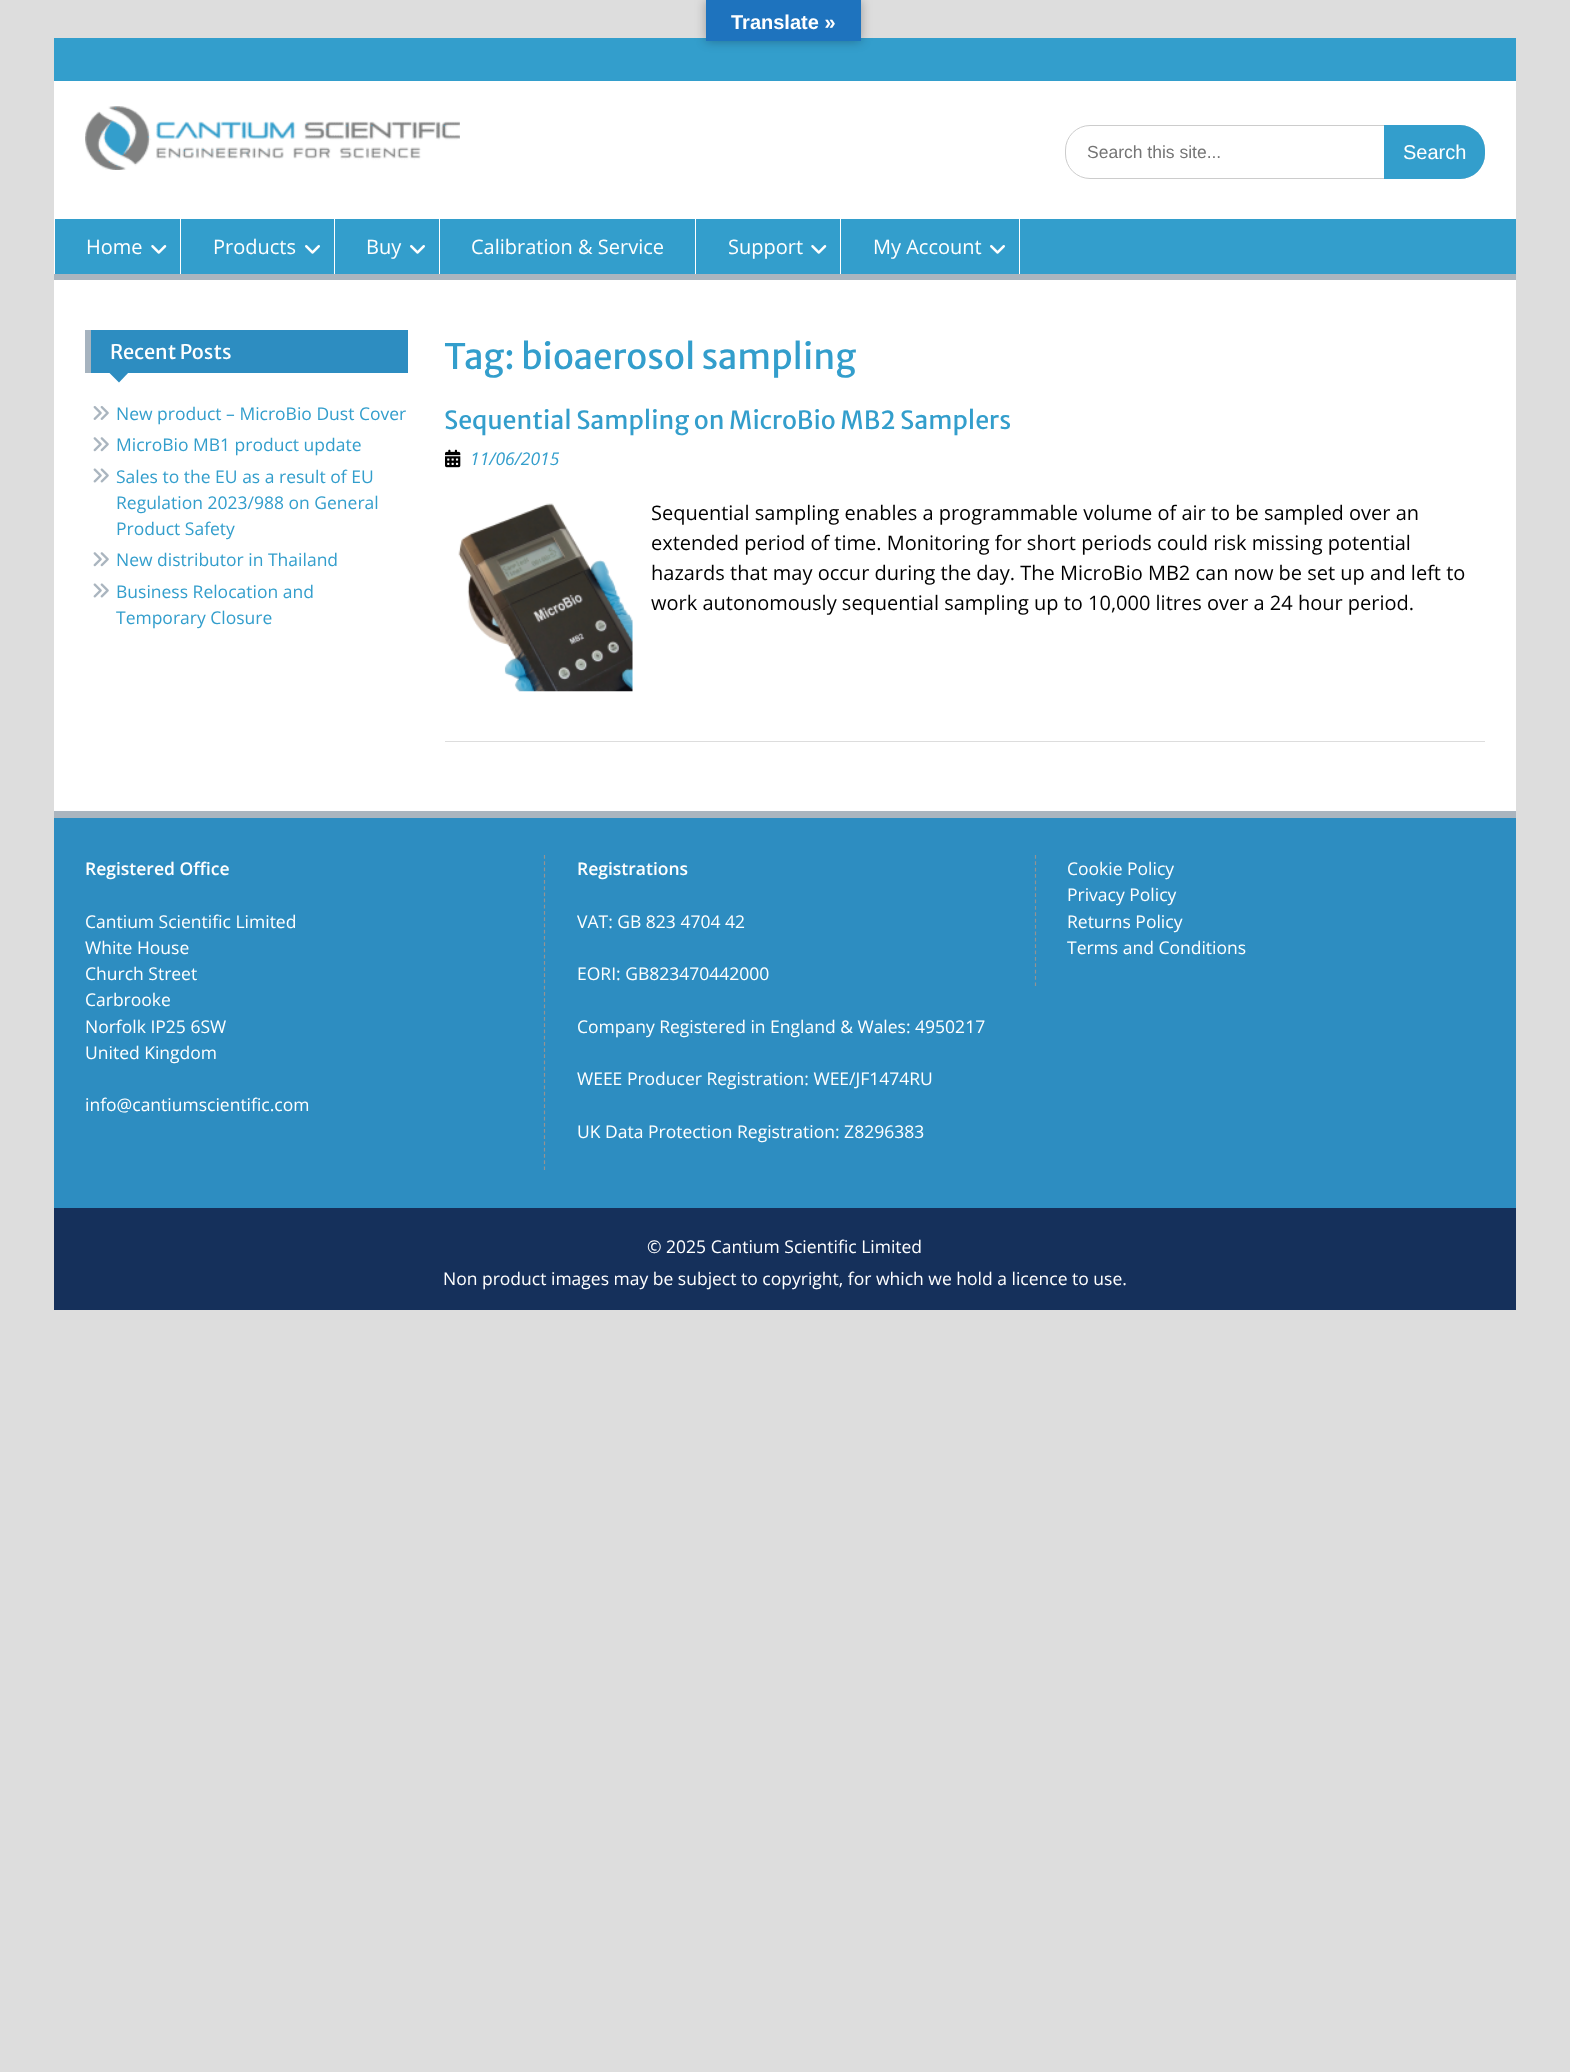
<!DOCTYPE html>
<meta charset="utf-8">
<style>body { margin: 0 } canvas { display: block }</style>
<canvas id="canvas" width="1570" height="2072"></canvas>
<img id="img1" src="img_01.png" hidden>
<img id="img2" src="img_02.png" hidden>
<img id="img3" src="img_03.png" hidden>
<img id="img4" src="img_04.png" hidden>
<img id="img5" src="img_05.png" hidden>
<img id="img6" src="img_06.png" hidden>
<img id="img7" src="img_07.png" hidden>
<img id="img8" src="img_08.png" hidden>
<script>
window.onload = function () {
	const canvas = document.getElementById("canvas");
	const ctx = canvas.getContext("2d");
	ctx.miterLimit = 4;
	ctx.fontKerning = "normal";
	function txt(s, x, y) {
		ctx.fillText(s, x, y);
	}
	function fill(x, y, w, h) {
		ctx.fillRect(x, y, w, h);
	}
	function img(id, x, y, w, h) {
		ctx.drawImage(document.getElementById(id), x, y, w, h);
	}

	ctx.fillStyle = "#DDDDDD";
	fill(0, 0, 1570, 2072);
	ctx.fillStyle = "#339ECC";
	fill(54, 38, 1462, 43);
	ctx.fillStyle = "rgba(0, 0, 0, 0.3)";
	ctx.filter = "blur(5.5px)";
	ctx.beginPath();
	ctx.rect(706, 0, 155, 41);
	ctx.fill();
	ctx.filter = "none";
	ctx.fillStyle = "#1E73BE";
	fill(706, 0, 155, 41);
	ctx.fillStyle = "#FFFFFF";
	fill(54, 81, 1462, 730);
	img("img1", 85, 106, 375, 64);
	ctx.beginPath();
	ctx.roundRect(1065.5, 125.5, 419, 53, 24.5);
	ctx.strokeStyle = "#CCCCCC";
	ctx.stroke();
	ctx.fillStyle = "#339ECC";
	ctx.beginPath();
	ctx.roundRect(1384, 125, 101, 54, [0, 25, 25, 0]);
	ctx.fill();
	fill(55, 219, 1461, 55);
	ctx.fillStyle = "#AAB5BF";
	fill(54, 274, 1462, 6);
	ctx.fillStyle = "#FFFFFF";
	fill(180, 219, 1, 55);
	img("img2", 151, 245, 16, 9);
	fill(334, 219, 1, 55);
	img("img3", 305, 245, 15, 9);
	fill(439, 219, 1, 55);
	img("img3", 410, 245, 15, 9);
	fill(695, 219, 1, 55);
	fill(840, 219, 1, 55);
	img("img2", 811, 245, 16, 9);
	fill(1019, 219, 1, 55);
	img("img3", 990, 245, 15, 9);
	ctx.fillStyle = "#2D8DC1";
	fill(91, 330, 317, 43);
	ctx.fillStyle = "#A6B3BF";
	fill(85, 330, 6, 43);
	ctx.fillStyle = "#2D8DC1";
	ctx.beginPath();
	ctx.moveTo(107.5, 371);
	ctx.lineTo(130, 371);
	ctx.lineTo(119, 382.5);
	ctx.closePath();
	ctx.fill();
	img("img4", 93, 406, 16, 14);
	img("img5", 93, 437, 16, 15);
	img("img6", 93, 468, 16, 15);
	img("img5", 93, 552, 16, 15);
	img("img6", 93, 583, 16, 15);
	ctx.fillStyle = "#DDDDDD";
	fill(445, 741, 1040, 1);
	img("img7", 445, 449, 16, 19);
	img("img8", 458, 503, 175, 189);
	ctx.fillStyle = "#2D8DC1";
	fill(54, 818, 1462, 390);
	ctx.fillStyle = "#AAB5BF";
	fill(54, 811, 1462, 7);
	ctx.beginPath();
	ctx.moveTo(544.5, 855);
	ctx.lineTo(544.5, 1170);
	ctx.strokeStyle = "#939393";
	ctx.lineWidth = 1.2;
	ctx.setLineDash([3.75, 2.48]);
	ctx.stroke();
	ctx.beginPath();
	ctx.moveTo(1035.5, 855);
	ctx.lineTo(1035.5, 986);
	ctx.setLineDash([3.75, 2.62]);
	ctx.stroke();
	ctx.fillStyle = "#15305B";
	fill(54, 1208, 1462, 102);
	ctx.font = "bold 20px Liberation Sans";
	ctx.fillStyle = "#FFFFFF";
	txt("Translate »", 731, 29);
	ctx.font = "17.5px Liberation Sans";
	ctx.fillStyle = "#757575";
	txt("Search this site...", 1087, 158);
	ctx.font = "20px Liberation Sans";
	ctx.fillStyle = "#FFFFFF";
	txt("Search", 1403, 159);
	ctx.font = "20px Open Sans";
	txt("Home", 86, 254);
	txt("Products", 213, 254);
	txt("Buy", 366, 254);
	txt("Calibration & Service", 471, 254);
	txt("Support", 728, 254);
	txt("My Account", 873, 254);
	ctx.font = "20px Merriweather Sans";
	txt("Recent Posts", 110, 359);
	ctx.font = "17.5px Open Sans";
	ctx.fillStyle = "#339ECC";
	txt("New product – MicroBio Dust Cover", 116, 420);
	txt("MicroBio MB1 product update", 116, 451);
	txt("Sales to the EU as a result of EU", 116, 483);
	txt("Regulation 2023/988 on General", 116, 509);
	txt("Product Safety", 116, 535);
	txt("New distributor in Thailand", 116, 566);
	txt("Business Relocation and", 116, 598);
	txt("Temporary Closure", 116, 624);
	ctx.font = "35px Merriweather Sans";
	txt("Tag: bioaerosol sampling", 444, 369);
	ctx.font = "25px Merriweather Sans";
	txt("Sequential Sampling on MicroBio MB2 Samplers", 444, 429);
	ctx.font = "italic 17.5px Open Sans";
	txt("11/06/2015", 470, 465);
	ctx.font = "20px Open Sans";
	ctx.fillStyle = "#000000";
	txt("Sequential sampling enables a programmable volume of air to be sampled over an", 651, 520);
	txt("extended period of time. Monitoring for short periods could risk missing potential", 651, 550);
	txt("hazards that may occur during the day. The MicroBio MB2 can now be set up and left to", 651, 580);
	txt("work autonomously sequential sampling up to 10,000 litres over a 24 hour period.", 651, 610);
	ctx.font = "600 17.5px Open Sans";
	ctx.fillStyle = "#FFFFFF";
	txt("Registered Office", 85, 875);
	ctx.font = "17.5px Open Sans";
	txt("Cantium Scientific Limited", 85, 928);
	txt("White House", 85, 954);
	txt("Church Street", 85, 980);
	txt("Carbrooke", 85, 1006);
	txt("Norfolk IP25 6SW", 85, 1033);
	txt("United Kingdom", 85, 1059);
	txt("info@cantiumscientific.com", 85, 1111);
	ctx.font = "600 17.5px Open Sans";
	txt("Registrations", 577, 875);
	ctx.font = "17.5px Open Sans";
	txt("VAT: GB 823 4704 42", 577, 928);
	txt("EORI: GB823470442000", 577, 980);
	txt("Company Registered in England & Wales: 4950217", 577, 1033);
	txt("WEEE Producer Registration: WEE/JF1474RU", 577, 1085);
	txt("UK Data Protection Registration: Z8296383", 577, 1138);
	txt("Cookie Policy", 1067, 875);
	txt("Privacy Policy", 1067, 901);
	txt("Returns Policy", 1067, 928);
	txt("Terms and Conditions", 1067, 954);
	txt("© 2025 Cantium Scientific Limited", 647, 1253);
	txt("Non product images may be subject to copyright, for which we hold a licence to use.", 443, 1285);
};
</script>
